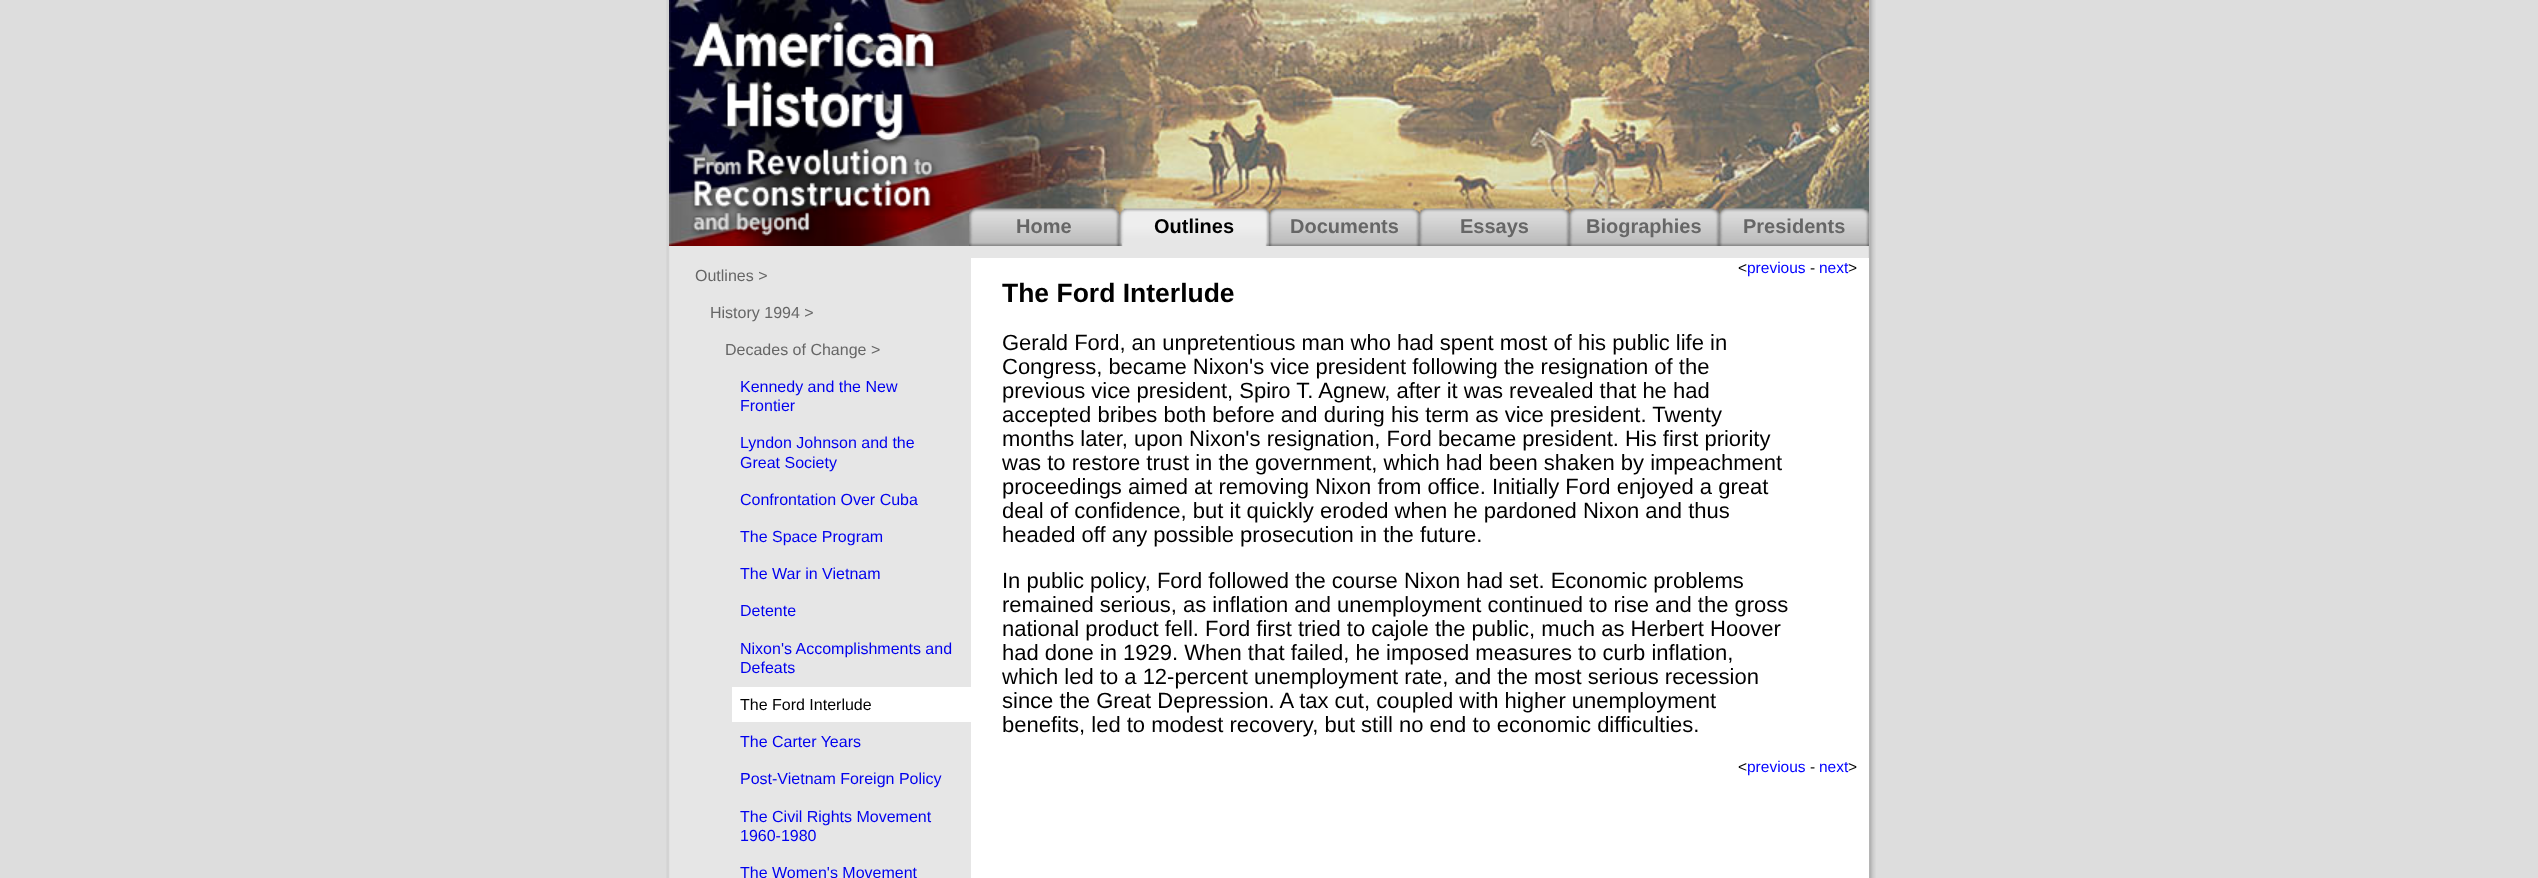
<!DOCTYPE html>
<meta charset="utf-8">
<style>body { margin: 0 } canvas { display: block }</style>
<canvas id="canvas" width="2538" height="878"></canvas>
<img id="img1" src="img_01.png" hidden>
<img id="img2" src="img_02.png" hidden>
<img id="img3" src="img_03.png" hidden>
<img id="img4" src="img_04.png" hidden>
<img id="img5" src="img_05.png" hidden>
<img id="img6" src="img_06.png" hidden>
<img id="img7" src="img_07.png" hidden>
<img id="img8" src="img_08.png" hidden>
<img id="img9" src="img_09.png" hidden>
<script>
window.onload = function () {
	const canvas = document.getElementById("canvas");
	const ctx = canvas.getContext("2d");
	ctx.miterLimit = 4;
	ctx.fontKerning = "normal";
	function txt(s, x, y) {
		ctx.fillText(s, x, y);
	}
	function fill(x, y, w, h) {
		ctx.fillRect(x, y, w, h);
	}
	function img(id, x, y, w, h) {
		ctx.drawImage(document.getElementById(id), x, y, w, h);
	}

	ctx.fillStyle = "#DDDDDD";
	fill(0, 0, 2538, 878);
	img("img1", 666, 0, 1210, 878);
	img("img2", 669, 0, 1200, 246);
	img("img3", 691, 20, 249, 221);
	img("img4", 969, 208, 150, 38);
	img("img5", 1119, 208, 150, 38);
	img("img6", 1269, 208, 150, 38);
	img("img7", 1419, 208, 150, 38);
	img("img8", 1569, 208, 150, 38);
	img("img9", 1719, 208, 150, 38);
	ctx.fillStyle = "#FFFFFF";
	fill(732, 687, 239, 35);
	fill(971, 258, 898, 620);
	ctx.font = "bold 20px Liberation Sans";
	ctx.fillStyle = "#666666";
	txt("Home", 1016, 233);
	ctx.fillStyle = "#000000";
	txt("Outlines", 1154, 233);
	ctx.fillStyle = "#666666";
	txt("Documents", 1290, 233);
	txt("Essays", 1460, 233);
	txt("Biographies", 1586, 233);
	txt("Presidents", 1743, 233);
	ctx.font = "16px Liberation Sans";
	txt("Outlines >", 695, 281);
	txt("History 1994 >", 710, 318);
	txt("Decades of Change >", 725, 355);
	ctx.fillStyle = "#0000EE";
	txt("Kennedy and the New", 740, 392);
	txt("Frontier", 740, 411);
	txt("Lyndon Johnson and the", 740, 448);
	txt("Great Society", 740, 468);
	txt("Confrontation Over Cuba", 740, 505);
	txt("The Space Program", 740, 542);
	txt("The War in Vietnam", 740, 579);
	txt("Detente", 740, 616);
	txt("Nixon's Accomplishments and", 740, 654);
	txt("Defeats", 740, 673);
	ctx.fillStyle = "#000000";
	txt("The Ford Interlude", 740, 710);
	ctx.fillStyle = "#0000EE";
	txt("The Carter Years", 740, 747);
	txt("Post-Vietnam Foreign Policy", 740, 784);
	txt("The Civil Rights Movement", 740, 822);
	txt("1960-1980", 740, 841);
	txt("The Women's Movement", 740, 878);
	ctx.font = "15.5px Liberation Sans";
	ctx.fillStyle = "#000000";
	txt("<", 1738, 273);
	ctx.fillStyle = "#0000FF";
	txt("previous", 1747, 273);
	ctx.fillStyle = "#000000";
	txt("-", 1810, 273);
	ctx.fillStyle = "#0000FF";
	txt("next", 1819, 273);
	ctx.fillStyle = "#000000";
	txt(">", 1848, 273);
	ctx.font = "bold 26.5px Liberation Sans";
	txt("The Ford Interlude", 1002, 302);
	ctx.font = "22px Liberation Sans";
	txt("Gerald Ford, an unpretentious man who had spent most of his public life in", 1002, 350);
	txt("Congress, became Nixon's vice president following the resignation of the", 1002, 374);
	txt("previous vice president, Spiro T. Agnew, after it was revealed that he had", 1002, 398);
	txt("accepted bribes both before and during his term as vice president. Twenty", 1002, 422);
	txt("months later, upon Nixon's resignation, Ford became president. His first priority", 1002, 446);
	txt("was to restore trust in the government, which had been shaken by impeachment", 1002, 470);
	txt("proceedings aimed at removing Nixon from office. Initially Ford enjoyed a great", 1002, 494);
	txt("deal of confidence, but it quickly eroded when he pardoned Nixon and thus", 1002, 518);
	txt("headed off any possible prosecution in the future.", 1002, 542);
	txt("In public policy, Ford followed the course Nixon had set. Economic problems", 1002, 588);
	txt("remained serious, as inflation and unemployment continued to rise and the gross", 1002, 612);
	txt("national product fell. Ford first tried to cajole the public, much as Herbert Hoover", 1002, 636);
	txt("had done in 1929. When that failed, he imposed measures to curb inflation,", 1002, 660);
	txt("which led to a 12-percent unemployment rate, and the most serious recession", 1002, 684);
	txt("since the Great Depression. A tax cut, coupled with higher unemployment", 1002, 708);
	txt("benefits, led to modest recovery, but still no end to economic difficulties.", 1002, 732);
	ctx.font = "15.5px Liberation Sans";
	txt("<", 1738, 772);
	ctx.fillStyle = "#0000FF";
	txt("previous", 1747, 772);
	ctx.fillStyle = "#000000";
	txt("-", 1810, 772);
	ctx.fillStyle = "#0000FF";
	txt("next", 1819, 772);
	ctx.fillStyle = "#000000";
	txt(">", 1848, 772);
};
</script>
